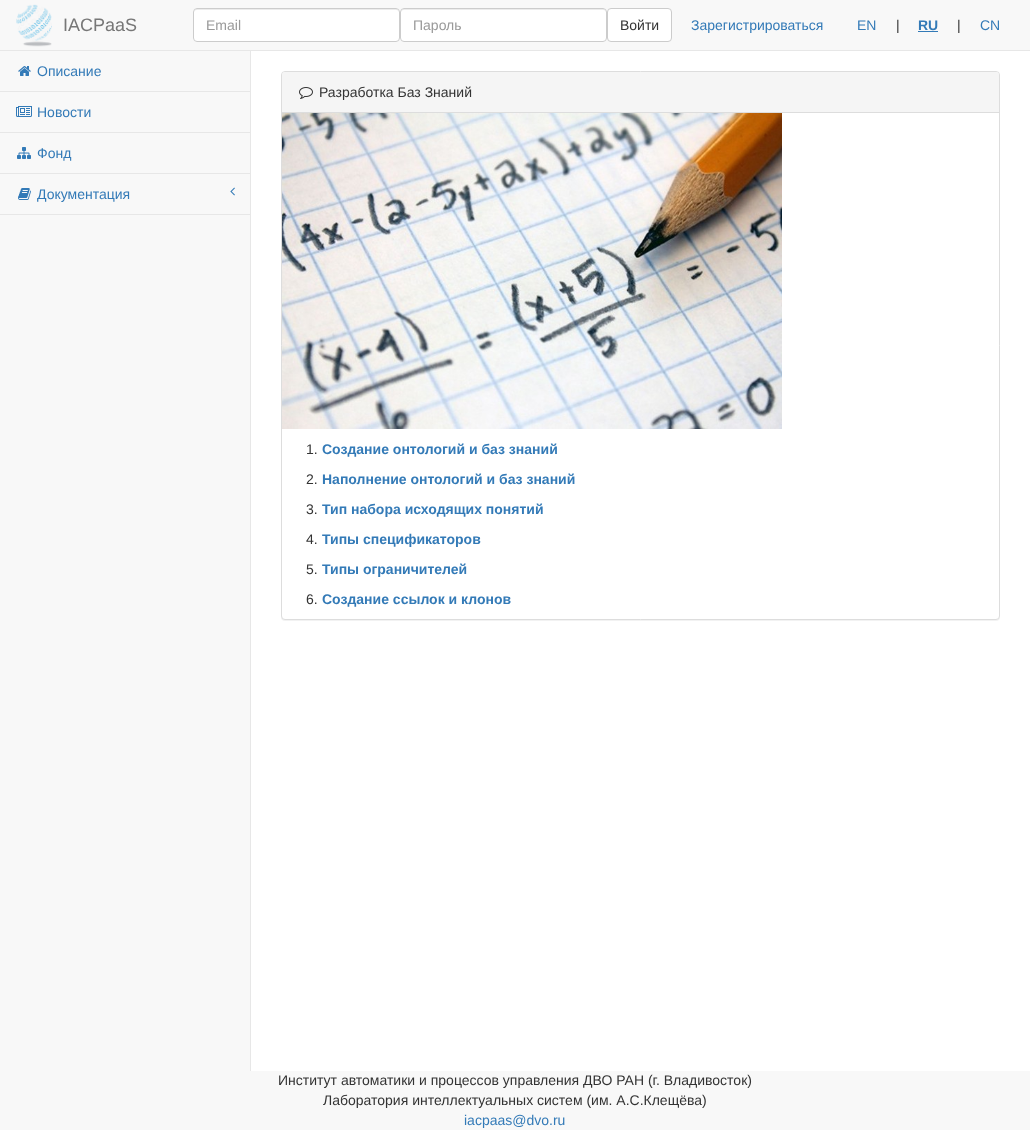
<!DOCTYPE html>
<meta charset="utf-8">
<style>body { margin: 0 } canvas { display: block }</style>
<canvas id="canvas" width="1030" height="1130"></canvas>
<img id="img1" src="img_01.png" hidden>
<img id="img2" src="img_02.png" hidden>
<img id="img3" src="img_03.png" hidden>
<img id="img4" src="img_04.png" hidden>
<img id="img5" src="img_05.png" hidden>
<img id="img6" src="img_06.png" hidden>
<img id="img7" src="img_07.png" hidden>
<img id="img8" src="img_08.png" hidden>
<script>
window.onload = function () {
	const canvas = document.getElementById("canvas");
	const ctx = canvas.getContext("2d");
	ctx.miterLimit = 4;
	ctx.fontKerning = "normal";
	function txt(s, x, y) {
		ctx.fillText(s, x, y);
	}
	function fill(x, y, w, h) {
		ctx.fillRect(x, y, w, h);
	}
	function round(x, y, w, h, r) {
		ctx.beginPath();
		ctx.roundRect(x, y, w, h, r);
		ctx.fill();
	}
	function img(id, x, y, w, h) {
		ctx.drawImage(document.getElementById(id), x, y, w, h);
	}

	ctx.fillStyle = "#F8F8F8";
	fill(0, 0, 1030, 1130);
	ctx.fillStyle = "#E7E7E7";
	fill(0, 50, 1030, 1);
	img("img1", 16, 4, 36, 43);
	ctx.fillStyle = "#FFFFFF";
	round(193, 8, 207, 34, 4);
	ctx.fillStyle = "#ECECEC";
	ctx.beginPath();
	ctx.moveTo(197, 10);
	ctx.lineTo(396, 10);
	ctx.bezierCurveTo(398, 10, 399, 11, 399, 13);
	ctx.bezierCurveTo(399, 11, 398, 9, 396, 9);
	ctx.lineTo(197, 9);
	ctx.bezierCurveTo(195, 9, 194, 11, 194, 13);
	ctx.bezierCurveTo(194, 11, 195, 10, 197, 10);
	ctx.closePath();
	ctx.fill();
	ctx.beginPath();
	ctx.roundRect(193.5, 8.5, 206, 33, 3.5);
	ctx.strokeStyle = "#CCCCCC";
	ctx.stroke();
	ctx.fillStyle = "#FFFFFF";
	round(400, 8, 207, 34, 4);
	ctx.fillStyle = "#ECECEC";
	ctx.beginPath();
	ctx.moveTo(404, 10);
	ctx.lineTo(603, 10);
	ctx.bezierCurveTo(605, 10, 606, 11, 606, 13);
	ctx.bezierCurveTo(606, 11, 605, 9, 603, 9);
	ctx.lineTo(404, 9);
	ctx.bezierCurveTo(402, 9, 401, 11, 401, 13);
	ctx.bezierCurveTo(401, 11, 402, 10, 404, 10);
	ctx.closePath();
	ctx.fill();
	ctx.beginPath();
	ctx.roundRect(400.5, 8.5, 206, 33, 3.5);
	ctx.stroke();
	ctx.fillStyle = "#FFFFFF";
	ctx.beginPath();
	ctx.roundRect(607.5, 8.5, 64, 33, 3.5);
	ctx.fill();
	ctx.stroke();
	ctx.fillStyle = "#337AB7";
	fill(918, 31, 20, 1);
	ctx.fillStyle = "#E7E7E7";
	fill(0, 91, 250, 1);
	img("img2", 18, 66, 13, 10);
	fill(0, 132, 250, 1);
	img("img3", 16, 106, 16, 11);
	fill(0, 173, 250, 1);
	img("img4", 17, 147, 14, 12);
	fill(0, 214, 250, 1);
	img("img5", 18, 188, 13, 12);
	img("img6", 230, 187, 5, 9);
	ctx.fillStyle = "#FFFFFF";
	fill(251, 51, 779, 1020);
	ctx.fillStyle = "#E7E7E7";
	fill(250, 51, 1, 1020);
	ctx.fillStyle = "rgba(0, 0, 0, 0.05)";
	ctx.filter = "blur(0.5px)";
	ctx.beginPath();
	ctx.roundRect(281, 72, 719, 549, 4);
	ctx.fill();
	ctx.filter = "none";
	ctx.fillStyle = "#FFFFFF";
	ctx.beginPath();
	ctx.roundRect(281.5, 71.5, 718, 548, 3.5);
	ctx.fill();
	ctx.strokeStyle = "#DDDDDD";
	ctx.stroke();
	ctx.fillStyle = "#F5F5F5";
	ctx.beginPath();
	ctx.roundRect(282, 72, 717, 41, [3, 3, 0, 0]);
	ctx.fill();
	ctx.fillStyle = "#DDDDDD";
	fill(282, 112, 717, 1);
	img("img7", 299, 87, 14, 12);
	img("img8", 282, 113, 500, 316);
	ctx.font = "18px Liberation Sans";
	ctx.fillStyle = "#777777";
	txt("IACPaaS", 63, 31);
	ctx.font = "14px Liberation Sans";
	ctx.fillStyle = "#999999";
	txt("Email", 206, 30);
	txt("Пароль", 413, 30);
	ctx.fillStyle = "#333333";
	txt("Войти", 620, 30);
	ctx.fillStyle = "#337AB7";
	txt("Зарегистрироваться", 691, 30);
	txt("EN", 857, 30);
	ctx.fillStyle = "#333333";
	txt("|", 896, 30);
	ctx.font = "bold 14px Liberation Sans";
	ctx.fillStyle = "#337AB7";
	txt("RU", 918, 30);
	ctx.font = "14px Liberation Sans";
	ctx.fillStyle = "#333333";
	txt("|", 957, 30);
	ctx.fillStyle = "#337AB7";
	txt("CN", 980, 30);
	txt("Описание", 37, 76);
	txt("Новости", 37, 117);
	txt("Фонд", 37, 158);
	txt("Документация", 37, 199);
	ctx.fillStyle = "#333333";
	txt("Разработка Баз Знаний", 319, 97);
	txt("1.", 306, 454);
	ctx.font = "bold 14px Liberation Sans";
	ctx.fillStyle = "#337AB7";
	txt("Создание онтологий и баз знаний", 322, 454);
	ctx.font = "14px Liberation Sans";
	ctx.fillStyle = "#333333";
	txt("2.", 306, 484);
	ctx.font = "bold 14px Liberation Sans";
	ctx.fillStyle = "#337AB7";
	txt("Наполнение онтологий и баз знаний", 322, 484);
	ctx.font = "14px Liberation Sans";
	ctx.fillStyle = "#333333";
	txt("3.", 306, 514);
	ctx.font = "bold 14px Liberation Sans";
	ctx.fillStyle = "#337AB7";
	txt("Тип набора исходящих понятий", 322, 514);
	ctx.font = "14px Liberation Sans";
	ctx.fillStyle = "#333333";
	txt("4.", 306, 544);
	ctx.font = "bold 14px Liberation Sans";
	ctx.fillStyle = "#337AB7";
	txt("Типы спецификаторов", 322, 544);
	ctx.font = "14px Liberation Sans";
	ctx.fillStyle = "#333333";
	txt("5.", 306, 574);
	ctx.font = "bold 14px Liberation Sans";
	ctx.fillStyle = "#337AB7";
	txt("Типы ограничителей", 322, 574);
	ctx.font = "14px Liberation Sans";
	ctx.fillStyle = "#333333";
	txt("6.", 306, 604);
	ctx.font = "bold 14px Liberation Sans";
	ctx.fillStyle = "#337AB7";
	txt("Создание ссылок и клонов", 322, 604);
	ctx.font = "14px Liberation Sans";
	ctx.fillStyle = "#333333";
	txt("Институт автоматики и процессов управления ДВО РАН (г. Владивосток)", 278, 1085);
	txt("Лаборатория интеллектуальных систем (им. А.С.Клещёва)", 323, 1105);
	ctx.fillStyle = "#337AB7";
	txt("iacpaas@dvo.ru", 464, 1125);
};
</script>
